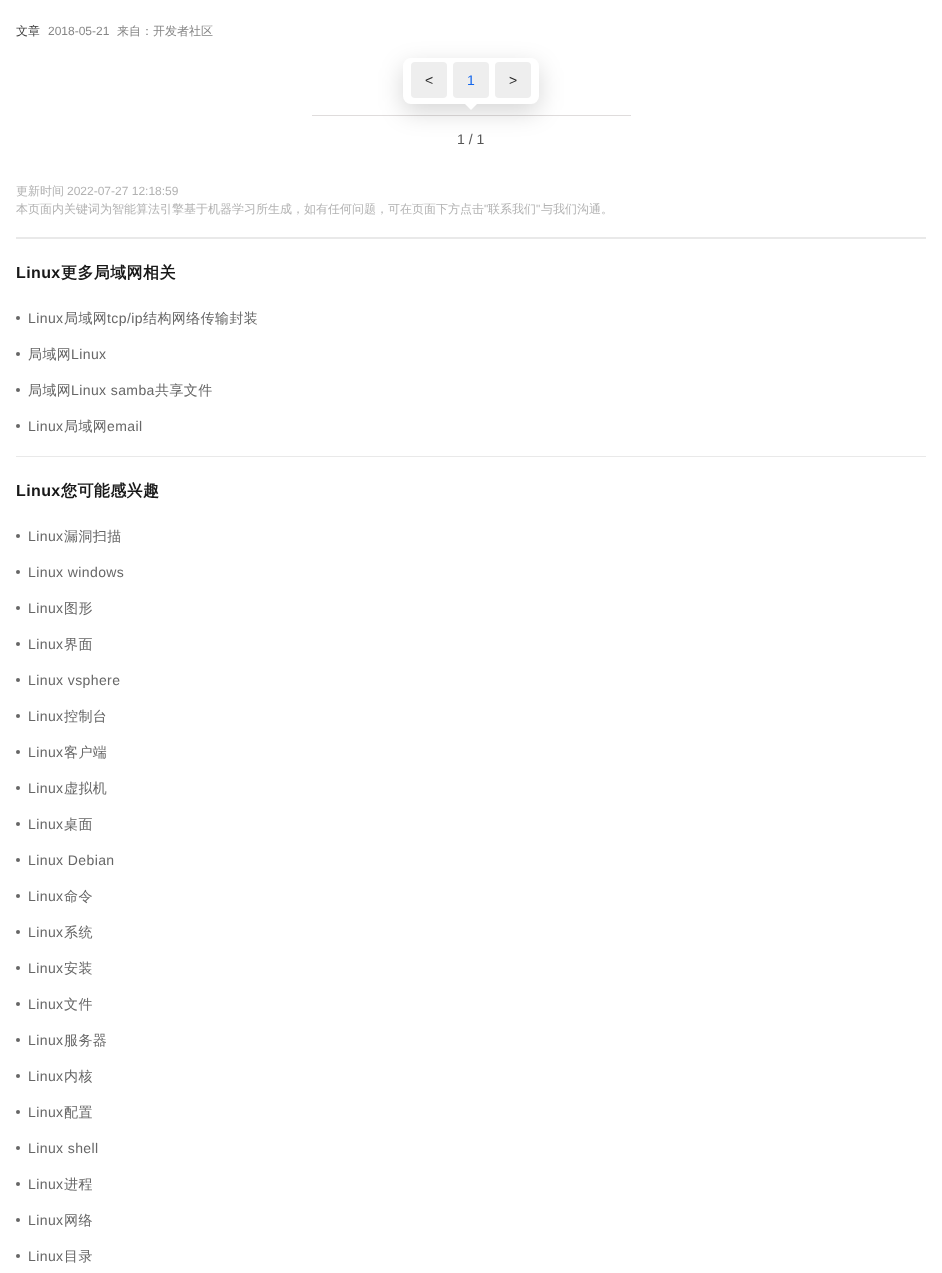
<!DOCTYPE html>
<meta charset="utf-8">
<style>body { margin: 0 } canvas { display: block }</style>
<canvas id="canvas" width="942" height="1273"></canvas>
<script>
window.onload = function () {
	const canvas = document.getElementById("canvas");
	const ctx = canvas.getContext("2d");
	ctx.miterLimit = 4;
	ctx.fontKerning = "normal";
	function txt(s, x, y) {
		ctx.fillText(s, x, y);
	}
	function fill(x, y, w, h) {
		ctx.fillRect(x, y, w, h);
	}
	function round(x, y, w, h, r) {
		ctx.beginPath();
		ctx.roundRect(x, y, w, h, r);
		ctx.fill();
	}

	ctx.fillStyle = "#FFFFFF";
	fill(0, 0, 942, 1273);
	ctx.fillStyle = "#DFDCDC";
	fill(312, 115, 319, 1);
	ctx.fillStyle = "rgba(0, 0, 0, 0.16)";
	ctx.filter = "blur(12px)";
	ctx.beginPath();
	ctx.roundRect(403, 66, 136, 46, 8);
	ctx.fill();
	ctx.filter = "none";
	ctx.fillStyle = "#FFFFFF";
	round(403, 58, 136, 46, 8);
	ctx.fillStyle = "#EEEEEE";
	round(411, 62, 36, 36, 4);
	round(453, 62, 36, 36, 4);
	round(495, 62, 36, 36, 4);
	ctx.fillStyle = "#FFFFFF";
	ctx.beginPath();
	ctx.moveTo(461, 100);
	ctx.lineTo(481, 100);
	ctx.lineTo(471, 110);
	ctx.closePath();
	ctx.fill();
	ctx.fillStyle = "#E9E9E9";
	fill(16, 237, 910, 2);
	ctx.fillStyle = "#666666";
	ctx.beginPath();
	ctx.arc(18, 318, 2, 0, Math.PI * 2);
	ctx.fill();
	ctx.beginPath();
	ctx.arc(18, 354, 2, 0, Math.PI * 2);
	ctx.fill();
	ctx.beginPath();
	ctx.arc(18, 390, 2, 0, Math.PI * 2);
	ctx.fill();
	ctx.beginPath();
	ctx.arc(18, 426, 2, 0, Math.PI * 2);
	ctx.fill();
	ctx.fillStyle = "#E9E9E9";
	fill(16, 456, 910, 1);
	ctx.fillStyle = "#666666";
	ctx.beginPath();
	ctx.arc(18, 536, 2, 0, Math.PI * 2);
	ctx.fill();
	ctx.beginPath();
	ctx.arc(18, 572, 2, 0, Math.PI * 2);
	ctx.fill();
	ctx.beginPath();
	ctx.arc(18, 608, 2, 0, Math.PI * 2);
	ctx.fill();
	ctx.beginPath();
	ctx.arc(18, 644, 2, 0, Math.PI * 2);
	ctx.fill();
	ctx.beginPath();
	ctx.arc(18, 680, 2, 0, Math.PI * 2);
	ctx.fill();
	ctx.beginPath();
	ctx.arc(18, 716, 2, 0, Math.PI * 2);
	ctx.fill();
	ctx.beginPath();
	ctx.arc(18, 752, 2, 0, Math.PI * 2);
	ctx.fill();
	ctx.beginPath();
	ctx.arc(18, 788, 2, 0, Math.PI * 2);
	ctx.fill();
	ctx.beginPath();
	ctx.arc(18, 824, 2, 0, Math.PI * 2);
	ctx.fill();
	ctx.beginPath();
	ctx.arc(18, 860, 2, 0, Math.PI * 2);
	ctx.fill();
	ctx.beginPath();
	ctx.arc(18, 896, 2, 0, Math.PI * 2);
	ctx.fill();
	ctx.beginPath();
	ctx.arc(18, 932, 2, 0, Math.PI * 2);
	ctx.fill();
	ctx.beginPath();
	ctx.arc(18, 968, 2, 0, Math.PI * 2);
	ctx.fill();
	ctx.beginPath();
	ctx.arc(18, 1004, 2, 0, Math.PI * 2);
	ctx.fill();
	ctx.beginPath();
	ctx.arc(18, 1040, 2, 0, Math.PI * 2);
	ctx.fill();
	ctx.beginPath();
	ctx.arc(18, 1076, 2, 0, Math.PI * 2);
	ctx.fill();
	ctx.beginPath();
	ctx.arc(18, 1112, 2, 0, Math.PI * 2);
	ctx.fill();
	ctx.beginPath();
	ctx.arc(18, 1148, 2, 0, Math.PI * 2);
	ctx.fill();
	ctx.beginPath();
	ctx.arc(18, 1184, 2, 0, Math.PI * 2);
	ctx.fill();
	ctx.beginPath();
	ctx.arc(18, 1220, 2, 0, Math.PI * 2);
	ctx.fill();
	ctx.beginPath();
	ctx.arc(18, 1256, 2, 0, Math.PI * 2);
	ctx.fill();
	ctx.font = "500 12px WenQuanYi Zen Hei";
	ctx.fillStyle = "#3D3D3D";
	txt("文章", 16, 35);
	ctx.font = "12px Liberation Sans";
	ctx.fillStyle = "#868686";
	txt("2018-05-21", 48, 35);
	ctx.font = "500 12px WenQuanYi Zen Hei";
	txt("来自：开发者社区", 117, 35);
	ctx.font = "14px Liberation Sans";
	ctx.fillStyle = "#262626";
	txt("<", 425, 85);
	ctx.fillStyle = "#1366EC";
	txt("1", 467, 85);
	ctx.fillStyle = "#262626";
	txt(">", 509, 85);
	ctx.fillStyle = "#555555";
	txt("1 / 1", 457, 144);
	ctx.font = "500 12px WenQuanYi Zen Hei";
	ctx.fillStyle = "#B2B2B2";
	txt("更新时间", 16, 195);
	ctx.font = "12px Liberation Sans";
	txt("2022-07-27 12:18:59", 67, 195);
	ctx.font = "500 12px WenQuanYi Zen Hei";
	txt("本页面内关键词为智能算法引擎基于机器学习所生成，如有任何问题，可在页面下方点击", 16, 213);
	ctx.font = "12px Liberation Sans";
	txt("\"", 484, 213);
	ctx.font = "500 12px WenQuanYi Zen Hei";
	txt("联系我们", 488, 213);
	ctx.font = "12px Liberation Sans";
	txt("\"", 536, 213);
	ctx.font = "500 12px WenQuanYi Zen Hei";
	txt("与我们沟通。", 541, 213);
	ctx.letterSpacing = "0.4px";
	ctx.font = "bold 16px Liberation Sans";
	ctx.fillStyle = "#181818";
	txt("Linux", 16, 278);
	ctx.font = "bold 16px WenQuanYi Zen Hei";
	txt("更多局域网相关", 61, 278);
	ctx.font = "14px Liberation Sans";
	ctx.fillStyle = "#666666";
	txt("Linux", 28, 323);
	ctx.font = "500 14px WenQuanYi Zen Hei";
	txt("局域网", 64, 323);
	ctx.font = "14px Liberation Sans";
	txt("tcp/ip", 107, 323);
	ctx.font = "500 14px WenQuanYi Zen Hei";
	txt("结构网络传输封装", 143, 323);
	txt("局域网", 28, 359);
	ctx.font = "14px Liberation Sans";
	txt("Linux", 71, 359);
	ctx.font = "500 14px WenQuanYi Zen Hei";
	txt("局域网", 28, 395);
	ctx.font = "14px Liberation Sans";
	txt("Linux samba", 71, 395);
	ctx.font = "500 14px WenQuanYi Zen Hei";
	txt("共享文件", 155, 395);
	ctx.font = "14px Liberation Sans";
	txt("Linux", 28, 431);
	ctx.font = "500 14px WenQuanYi Zen Hei";
	txt("局域网", 64, 431);
	ctx.font = "14px Liberation Sans";
	txt("email", 107, 431);
	ctx.font = "bold 16px Liberation Sans";
	ctx.fillStyle = "#181818";
	txt("Linux", 16, 496);
	ctx.font = "bold 16px WenQuanYi Zen Hei";
	txt("您可能感兴趣", 61, 496);
	ctx.font = "14px Liberation Sans";
	ctx.fillStyle = "#666666";
	txt("Linux", 28, 541);
	ctx.font = "500 14px WenQuanYi Zen Hei";
	txt("漏洞扫描", 64, 541);
	ctx.font = "14px Liberation Sans";
	txt("Linux windows", 28, 577);
	txt("Linux", 28, 613);
	ctx.font = "500 14px WenQuanYi Zen Hei";
	txt("图形", 64, 613);
	ctx.font = "14px Liberation Sans";
	txt("Linux", 28, 649);
	ctx.font = "500 14px WenQuanYi Zen Hei";
	txt("界面", 64, 649);
	ctx.font = "14px Liberation Sans";
	txt("Linux vsphere", 28, 685);
	txt("Linux", 28, 721);
	ctx.font = "500 14px WenQuanYi Zen Hei";
	txt("控制台", 64, 721);
	ctx.font = "14px Liberation Sans";
	txt("Linux", 28, 757);
	ctx.font = "500 14px WenQuanYi Zen Hei";
	txt("客户端", 64, 757);
	ctx.font = "14px Liberation Sans";
	txt("Linux", 28, 793);
	ctx.font = "500 14px WenQuanYi Zen Hei";
	txt("虚拟机", 64, 793);
	ctx.font = "14px Liberation Sans";
	txt("Linux", 28, 829);
	ctx.font = "500 14px WenQuanYi Zen Hei";
	txt("桌面", 64, 829);
	ctx.font = "14px Liberation Sans";
	txt("Linux Debian", 28, 865);
	txt("Linux", 28, 901);
	ctx.font = "500 14px WenQuanYi Zen Hei";
	txt("命令", 64, 901);
	ctx.font = "14px Liberation Sans";
	txt("Linux", 28, 937);
	ctx.font = "500 14px WenQuanYi Zen Hei";
	txt("系统", 64, 937);
	ctx.font = "14px Liberation Sans";
	txt("Linux", 28, 973);
	ctx.font = "500 14px WenQuanYi Zen Hei";
	txt("安装", 64, 973);
	ctx.font = "14px Liberation Sans";
	txt("Linux", 28, 1009);
	ctx.font = "500 14px WenQuanYi Zen Hei";
	txt("文件", 64, 1009);
	ctx.font = "14px Liberation Sans";
	txt("Linux", 28, 1045);
	ctx.font = "500 14px WenQuanYi Zen Hei";
	txt("服务器", 64, 1045);
	ctx.font = "14px Liberation Sans";
	txt("Linux", 28, 1081);
	ctx.font = "500 14px WenQuanYi Zen Hei";
	txt("内核", 64, 1081);
	ctx.font = "14px Liberation Sans";
	txt("Linux", 28, 1117);
	ctx.font = "500 14px WenQuanYi Zen Hei";
	txt("配置", 64, 1117);
	ctx.font = "14px Liberation Sans";
	txt("Linux shell", 28, 1153);
	txt("Linux", 28, 1189);
	ctx.font = "500 14px WenQuanYi Zen Hei";
	txt("进程", 64, 1189);
	ctx.font = "14px Liberation Sans";
	txt("Linux", 28, 1225);
	ctx.font = "500 14px WenQuanYi Zen Hei";
	txt("网络", 64, 1225);
	ctx.font = "14px Liberation Sans";
	txt("Linux", 28, 1261);
	ctx.font = "500 14px WenQuanYi Zen Hei";
	txt("目录", 64, 1261);
};
</script>
